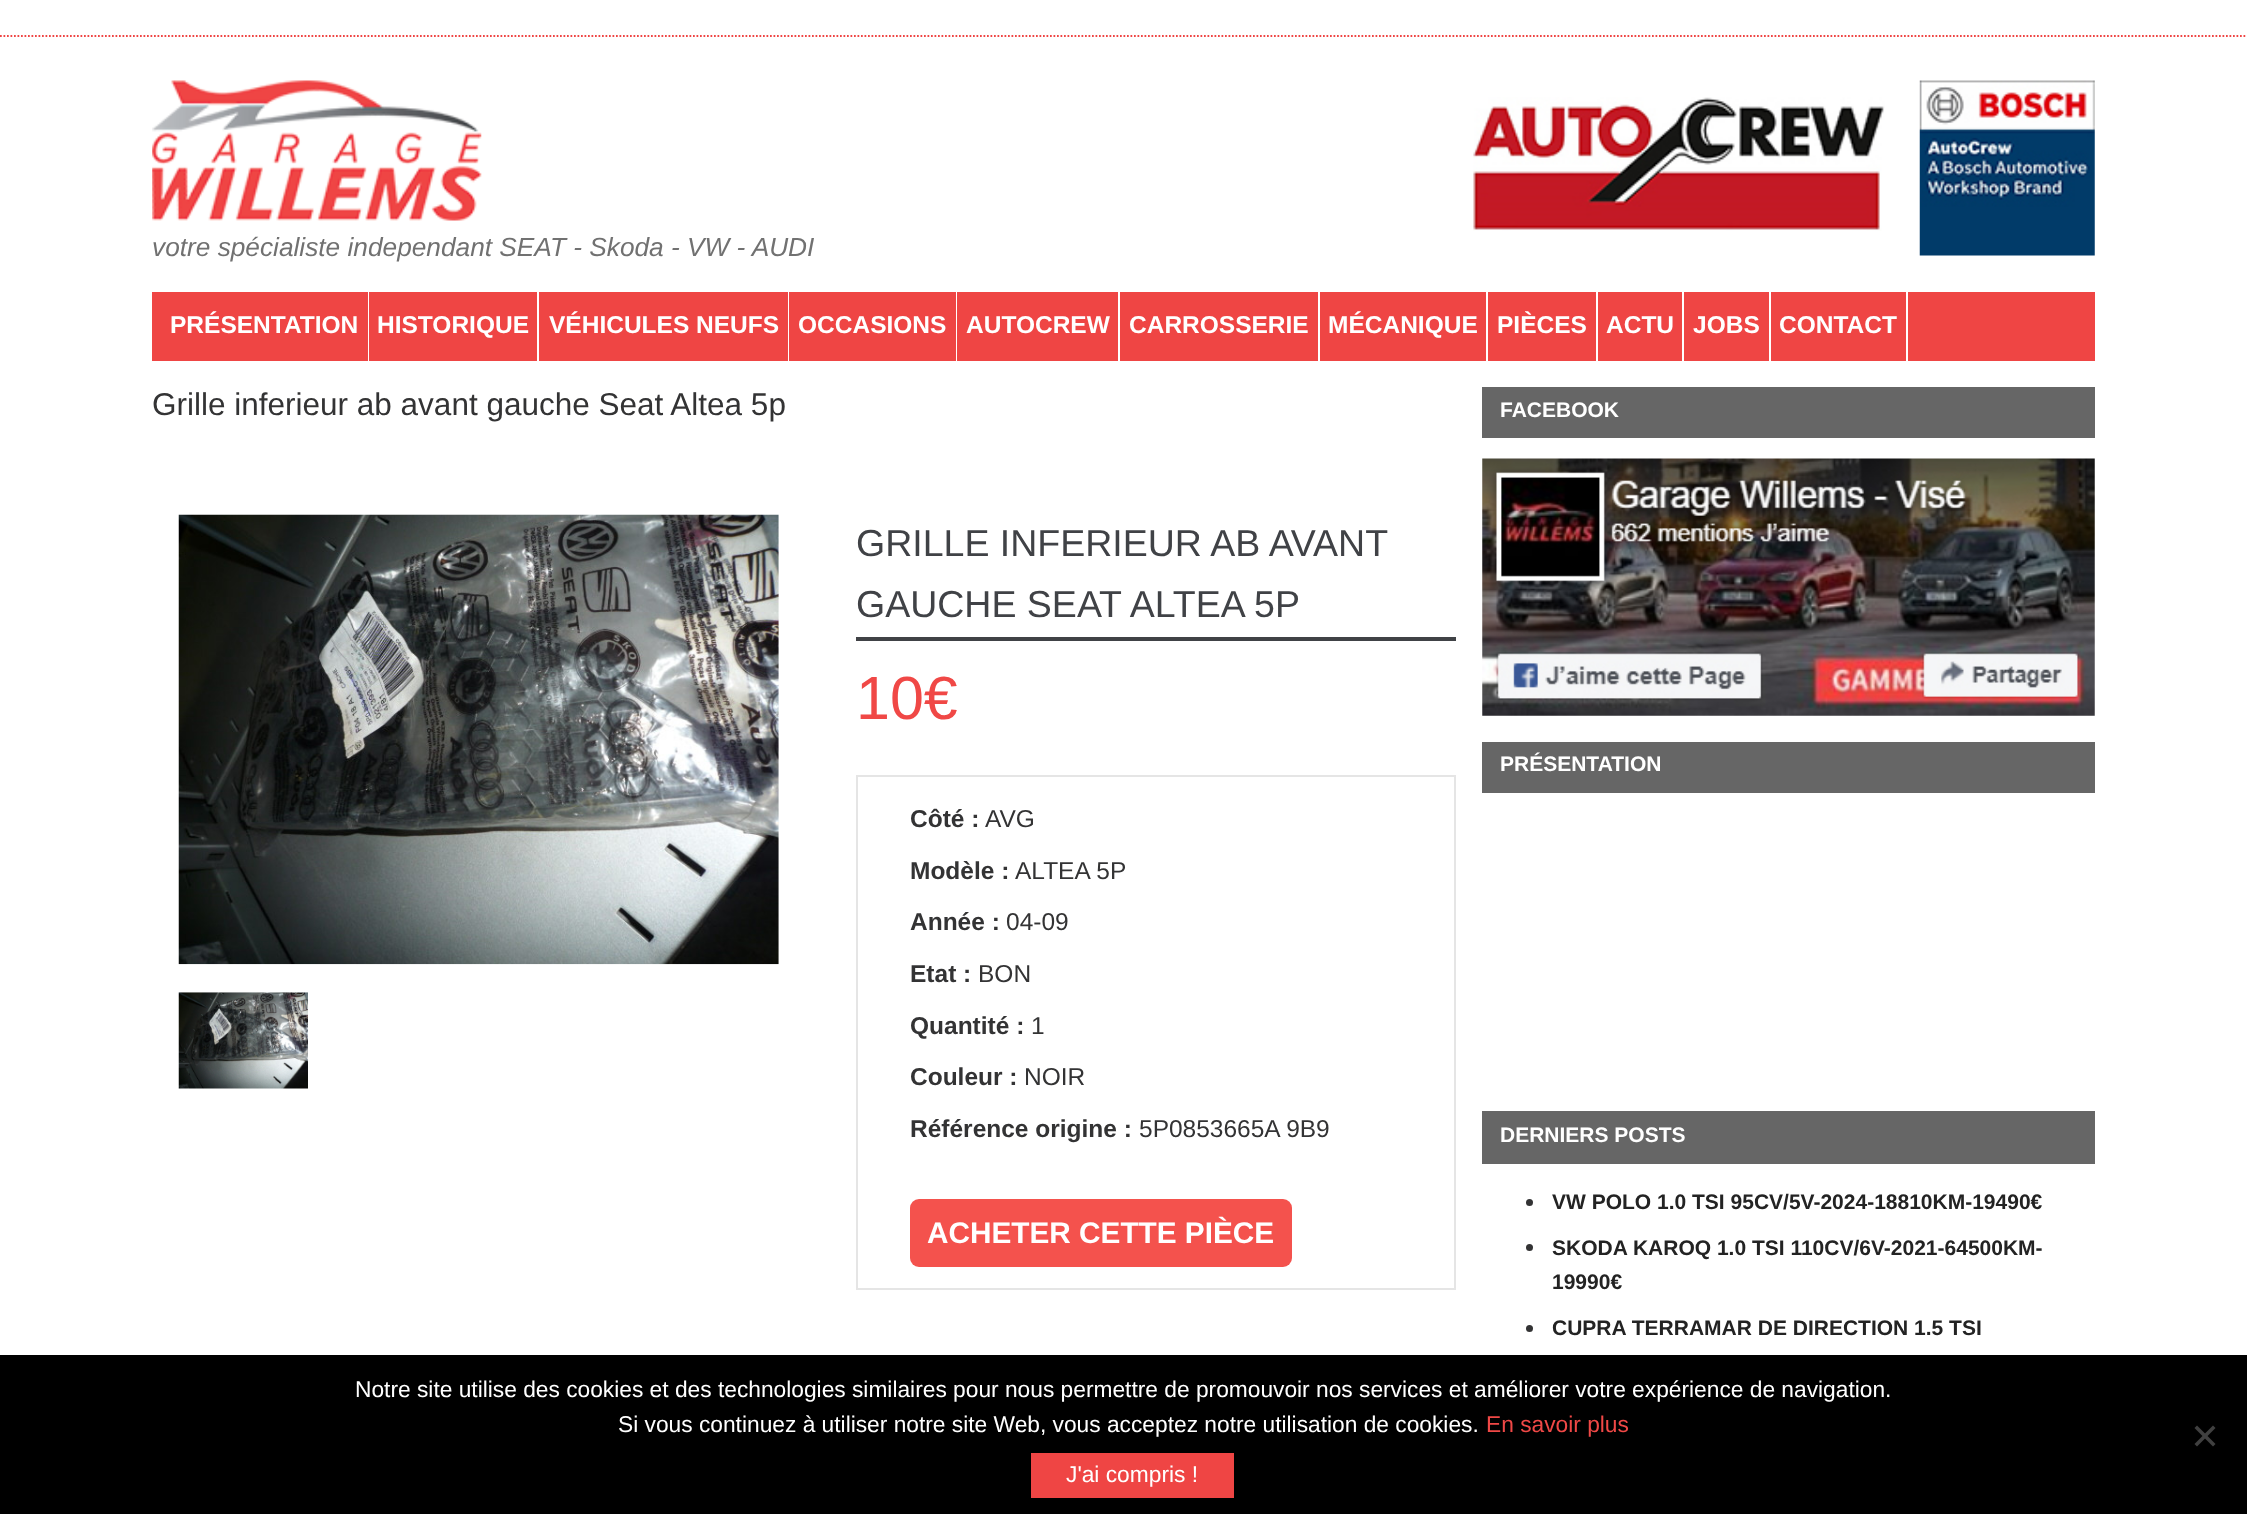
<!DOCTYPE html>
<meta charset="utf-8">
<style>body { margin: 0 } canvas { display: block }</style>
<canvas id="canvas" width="2247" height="1514"></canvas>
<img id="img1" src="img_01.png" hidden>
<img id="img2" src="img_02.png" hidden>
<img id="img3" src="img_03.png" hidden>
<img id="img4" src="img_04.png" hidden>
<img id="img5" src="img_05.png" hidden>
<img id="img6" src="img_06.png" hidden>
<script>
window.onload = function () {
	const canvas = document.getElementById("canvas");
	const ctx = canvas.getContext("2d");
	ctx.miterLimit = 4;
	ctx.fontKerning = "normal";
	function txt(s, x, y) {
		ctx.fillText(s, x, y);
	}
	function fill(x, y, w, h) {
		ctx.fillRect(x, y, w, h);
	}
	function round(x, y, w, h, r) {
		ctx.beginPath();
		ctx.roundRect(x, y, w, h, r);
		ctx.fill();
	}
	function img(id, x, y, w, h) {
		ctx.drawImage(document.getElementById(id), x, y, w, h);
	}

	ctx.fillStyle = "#FFFFFF";
	fill(0, 0, 2247, 1514);
	ctx.beginPath();
	ctx.moveTo(0, 36);
	ctx.lineTo(2247, 36);
	ctx.strokeStyle = "#EF4544";
	ctx.lineWidth = 1.8;
	ctx.setLineDash([1.75, 1.75]);
	ctx.stroke();
	img("img1", 152, 80, 330, 141);
	img("img2", 1473, 97, 412, 134);
	img("img3", 1919, 80, 176, 176);
	ctx.fillStyle = "#EF4544";
	fill(152, 292, 1943, 69);
	ctx.fillStyle = "#FFFFFF";
	fill(368, 292, 1, 69);
	fill(537, 292, 2, 69);
	fill(788, 292, 1, 69);
	fill(956, 292, 1, 69);
	fill(1118, 292, 2, 69);
	fill(1318, 292, 2, 69);
	fill(1486, 292, 2, 69);
	fill(1596, 292, 2, 69);
	fill(1682, 292, 2, 69);
	fill(1769, 292, 2, 69);
	fill(1906, 292, 2, 69);
	img("img4", 178, 514, 601, 451);
	img("img5", 178, 992, 130, 97);
	ctx.fillStyle = "#404246";
	fill(856, 637, 600, 4);
	ctx.strokeStyle = "#E5E5E5";
	ctx.lineWidth = 2;
	ctx.setLineDash([]);
	ctx.strokeRect(857, 776, 598, 513);
	ctx.fillStyle = "#F4524D";
	round(910, 1199, 382, 68, 9);
	ctx.fillStyle = "#666666";
	fill(1482, 387, 613, 51);
	img("img6", 1482, 458, 613, 258);
	fill(1482, 742, 613, 51);
	fill(1482, 1111, 613, 53);
	ctx.fillStyle = "#333334";
	ctx.beginPath();
	ctx.arc(1529.5, 1202.5, 3.5, 0, Math.PI * 2);
	ctx.fill();
	ctx.beginPath();
	ctx.arc(1529.5, 1247.5, 3.5, 0, Math.PI * 2);
	ctx.fill();
	ctx.beginPath();
	ctx.arc(1529.5, 1328.5, 3.5, 0, Math.PI * 2);
	ctx.fill();
	ctx.fillStyle = "#000000";
	fill(0, 1355, 2247, 159);
	ctx.fillStyle = "#404040";
	ctx.beginPath();
	ctx.moveTo(2213, 1425.5);
	ctx.lineTo(2215.5, 1428);
	ctx.lineTo(2197, 1446.5);
	ctx.lineTo(2194.5, 1444);
	ctx.closePath();
	ctx.fill();
	ctx.beginPath();
	ctx.moveTo(2194.5, 1428);
	ctx.lineTo(2197, 1425.5);
	ctx.lineTo(2215.5, 1444);
	ctx.lineTo(2213, 1446.5);
	ctx.closePath();
	ctx.fill();
	ctx.fillStyle = "#EF4544";
	fill(1031, 1453, 203, 45);
	ctx.font = "italic 26.25px Liberation Sans";
	ctx.fillStyle = "#717171";
	txt("votre spécialiste independant SEAT - Skoda - VW - AUDI", 152, 256);
	ctx.font = "bold 24.5px Liberation Sans";
	ctx.fillStyle = "#FFFFFF";
	txt("PRÉSENTATION", 170, 333);
	txt("HISTORIQUE", 377, 333);
	txt("VÉHICULES NEUFS", 549, 333);
	txt("OCCASIONS", 798, 333);
	txt("AUTOCREW", 966, 333);
	txt("CARROSSERIE", 1129, 333);
	txt("MÉCANIQUE", 1328, 333);
	txt("PIÈCES", 1497, 333);
	txt("ACTU", 1606, 333);
	txt("JOBS", 1693, 333);
	txt("CONTACT", 1779, 333);
	ctx.font = "31.5px Liberation Sans";
	ctx.fillStyle = "#333334";
	txt("Grille inferieur ab avant gauche Seat Altea 5p", 152, 415);
	ctx.font = "37.5px Liberation Sans";
	ctx.fillStyle = "#404246";
	txt("GRILLE INFERIEUR AB AVANT", 856, 556);
	txt("GAUCHE SEAT ALTEA 5P", 856, 617);
	ctx.font = "61px Liberation Sans";
	ctx.fillStyle = "#F04846";
	txt("10€", 856, 719);
	ctx.font = "bold 24.5px Liberation Sans";
	ctx.fillStyle = "#333334";
	txt("Côté :", 910, 827);
	ctx.font = "24.5px Liberation Sans";
	txt("AVG", 985, 827);
	ctx.font = "bold 24.5px Liberation Sans";
	txt("Modèle :", 910, 879);
	ctx.font = "24.5px Liberation Sans";
	txt("ALTEA 5P", 1015, 879);
	ctx.font = "bold 24.5px Liberation Sans";
	txt("Année :", 910, 930);
	ctx.font = "24.5px Liberation Sans";
	txt("04-09", 1006, 930);
	ctx.font = "bold 24.5px Liberation Sans";
	txt("Etat :", 910, 982);
	ctx.font = "24.5px Liberation Sans";
	txt("BON", 978, 982);
	ctx.font = "bold 24.5px Liberation Sans";
	txt("Quantité :", 910, 1034);
	ctx.font = "24.5px Liberation Sans";
	txt("1", 1031, 1034);
	ctx.font = "bold 24.5px Liberation Sans";
	txt("Couleur :", 910, 1085);
	ctx.font = "24.5px Liberation Sans";
	txt("NOIR", 1024, 1085);
	ctx.font = "bold 24.5px Liberation Sans";
	txt("Référence origine :", 910, 1137);
	ctx.font = "24.5px Liberation Sans";
	txt("5P0853665A 9B9", 1139, 1137);
	ctx.font = "bold 29.75px Liberation Sans";
	ctx.fillStyle = "#FFFFFF";
	txt("ACHETER CETTE PIÈCE", 927, 1243);
	ctx.font = "bold 21px Liberation Sans";
	txt("FACEBOOK", 1500, 417);
	txt("PRÉSENTATION", 1500, 771);
	txt("DERNIERS POSTS", 1500, 1142);
	ctx.fillStyle = "#232323";
	txt("VW POLO 1.0 TSI 95CV/5V-2024-18810KM-19490€", 1552, 1209);
	txt("SKODA KAROQ 1.0 TSI 110CV/6V-2021-64500KM-", 1552, 1255);
	txt("19990€", 1552, 1289);
	txt("CUPRA TERRAMAR DE DIRECTION 1.5 TSI", 1552, 1335);
	ctx.font = "22.75px Liberation Sans";
	ctx.fillStyle = "#FFFFFF";
	txt("Notre site utilise des cookies et des technologies similaires pour nous permettre de promouvoir nos services et améliorer votre expérience de navigation.", 355, 1397);
	txt("Si vous continuez à utiliser notre site Web, vous acceptez notre utilisation de cookies.", 618, 1432);
	ctx.fillStyle = "#F04846";
	txt("En savoir plus", 1486, 1432);
	ctx.fillStyle = "#FFFFFF";
	txt("J'ai compris !", 1066, 1482);
};
</script>
